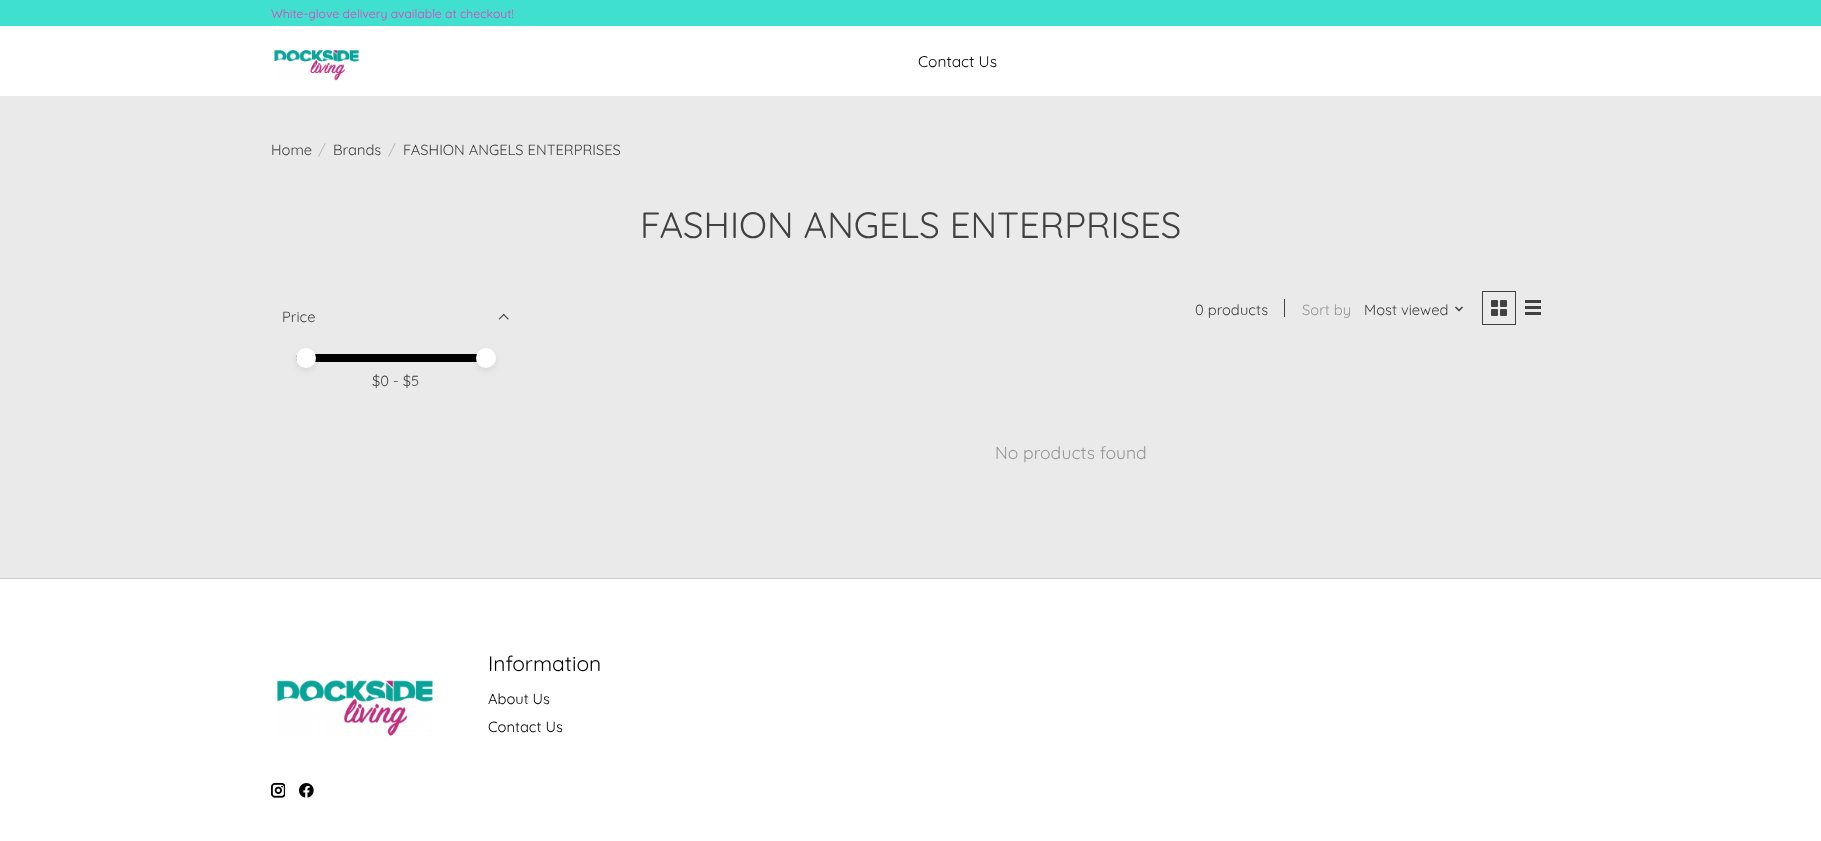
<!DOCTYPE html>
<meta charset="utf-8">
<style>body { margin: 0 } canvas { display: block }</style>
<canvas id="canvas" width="1821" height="841"></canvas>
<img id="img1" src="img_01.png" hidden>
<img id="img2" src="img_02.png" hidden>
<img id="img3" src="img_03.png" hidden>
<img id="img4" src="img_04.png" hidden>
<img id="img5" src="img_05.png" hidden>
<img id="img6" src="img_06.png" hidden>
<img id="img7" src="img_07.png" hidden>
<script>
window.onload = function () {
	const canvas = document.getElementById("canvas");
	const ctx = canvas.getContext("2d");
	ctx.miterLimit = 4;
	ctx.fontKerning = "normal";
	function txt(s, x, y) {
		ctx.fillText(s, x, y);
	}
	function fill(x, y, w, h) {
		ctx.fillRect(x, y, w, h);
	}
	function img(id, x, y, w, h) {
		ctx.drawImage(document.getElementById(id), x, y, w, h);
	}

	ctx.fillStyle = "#EAEAEA";
	fill(0, 0, 1821, 841);
	ctx.fillStyle = "#FFFFFF";
	fill(0, 26, 1821, 70);
	ctx.fillStyle = "#40E0D0";
	fill(0, 0, 1821, 26);
	img("img1", 274, 49, 85, 32);
	img("img2", 498, 313, 11, 7);
	ctx.fillStyle = "#000000";
	ctx.beginPath();
	ctx.roundRect(296, 354, 190, 8, [4, 0, 0, 4]);
	ctx.fill();
	ctx.fillStyle = "rgba(0, 0, 0, 0.08)";
	ctx.filter = "blur(3px)";
	ctx.beginPath();
	ctx.roundRect(296, 351, 20, 20, 10);
	ctx.fill();
	ctx.filter = "none";
	ctx.fillStyle = "#FFFFFF";
	ctx.beginPath();
	ctx.arc(306, 358, 10, 0, Math.PI * 2);
	ctx.fill();
	ctx.fillStyle = "rgba(0, 0, 0, 0.08)";
	ctx.filter = "blur(3px)";
	ctx.beginPath();
	ctx.roundRect(476, 351, 20, 20, 10);
	ctx.fill();
	ctx.filter = "none";
	ctx.fillStyle = "#FFFFFF";
	ctx.beginPath();
	ctx.arc(486, 358, 10, 0, Math.PI * 2);
	ctx.fill();
	ctx.fillStyle = "#414141";
	fill(1284, 299, 1, 18);
	img("img3", 1455, 306, 8, 6);
	ctx.strokeStyle = "#414141";
	ctx.strokeRect(1482.5, 291.5, 33, 33);
	img("img4", 1491, 300, 16, 16);
	fill(1525, 300, 16, 3);
	fill(1525, 306, 16, 3);
	fill(1525, 312, 16, 3);
	ctx.fillStyle = "#FFFFFF";
	fill(0, 579, 1821, 262);
	ctx.fillStyle = "#CCCCCC";
	fill(0, 578, 1821, 1);
	img("img5", 277, 680, 156, 56);
	img("img6", 271, 783, 14, 15);
	img("img7", 299, 783, 15, 15);
	ctx.font = "12.25px Quicksand";
	ctx.fillStyle = "#E143B6";
	txt("White-glove delivery available at checkout!", 271, 18);
	ctx.font = "15.5px Quicksand";
	ctx.fillStyle = "#000000";
	txt("Contact Us", 918, 67);
	ctx.font = "14.7px Quicksand";
	ctx.fillStyle = "#414141";
	txt("Home", 271, 155);
	ctx.fillStyle = "#B7B7B7";
	txt("/", 318, 155);
	ctx.fillStyle = "#414141";
	txt("Brands", 333, 155);
	ctx.fillStyle = "#B7B7B7";
	txt("/", 388, 155);
	ctx.fillStyle = "#414141";
	txt("FASHION ANGELS ENTERPRISES", 403, 155);
	ctx.font = "36.5px Quicksand";
	txt("FASHION ANGELS ENTERPRISES", 640, 238);
	ctx.font = "14.7px Quicksand";
	txt("Price", 282, 322);
	txt("$0 - $5", 372, 386);
	txt("0 products", 1195, 315);
	ctx.fillStyle = "#969696";
	txt("Sort by", 1302, 315);
	ctx.fillStyle = "#414141";
	txt("Most viewed", 1364, 315);
	ctx.font = "17.5px Quicksand";
	ctx.fillStyle = "#969696";
	txt("No products found", 995, 459);
	ctx.font = "21px Quicksand";
	ctx.fillStyle = "#000000";
	txt("Information", 488, 671);
	ctx.font = "14.7px Quicksand";
	txt("About Us", 488, 704);
	txt("Contact Us", 488, 732);
};
</script>
